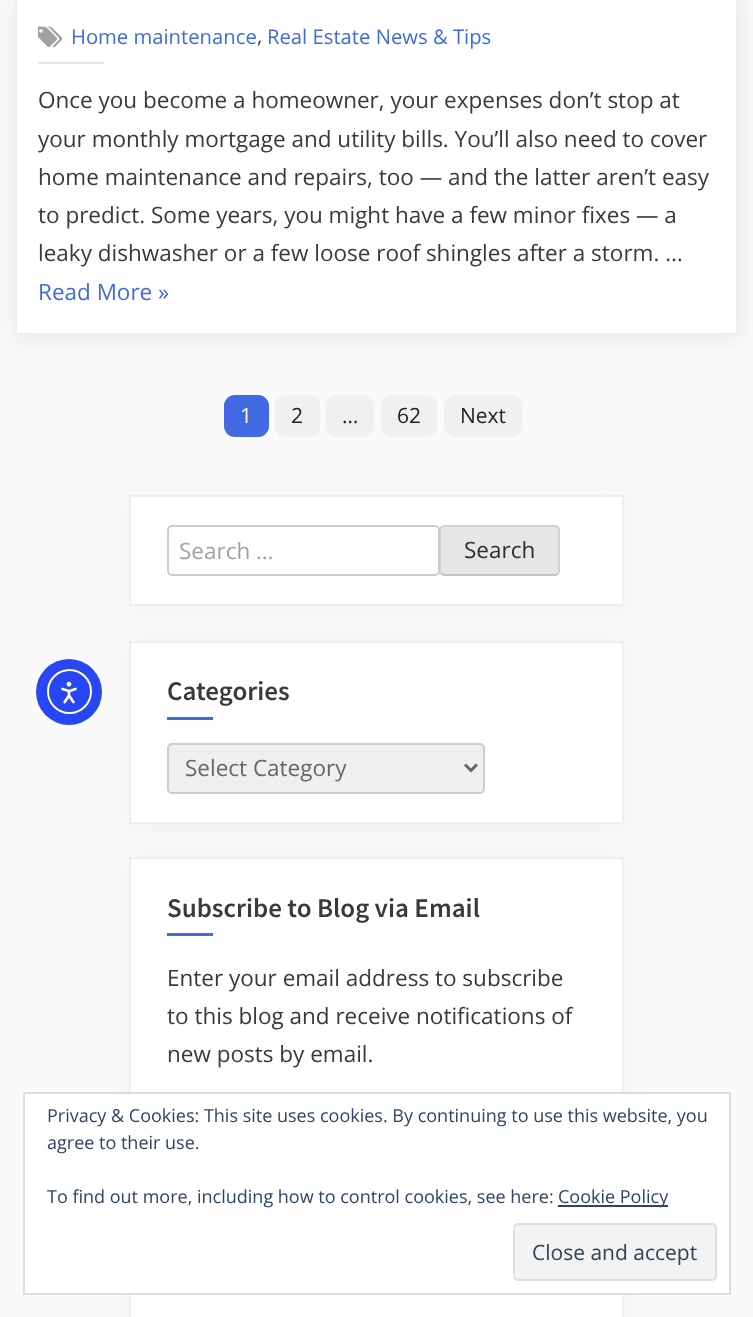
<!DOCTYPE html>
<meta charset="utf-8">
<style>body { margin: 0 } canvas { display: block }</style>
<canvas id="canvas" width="753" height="1317"></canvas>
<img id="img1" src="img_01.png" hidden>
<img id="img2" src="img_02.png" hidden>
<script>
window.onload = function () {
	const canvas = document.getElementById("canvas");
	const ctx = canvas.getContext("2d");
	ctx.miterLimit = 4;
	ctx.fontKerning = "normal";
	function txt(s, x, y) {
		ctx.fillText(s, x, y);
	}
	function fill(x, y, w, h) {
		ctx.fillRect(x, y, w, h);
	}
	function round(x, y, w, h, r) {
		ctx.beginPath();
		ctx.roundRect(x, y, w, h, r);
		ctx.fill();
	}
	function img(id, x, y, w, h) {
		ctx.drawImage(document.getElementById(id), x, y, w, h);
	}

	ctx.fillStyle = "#FAFAFA";
	fill(0, 0, 753, 1317);
	ctx.fillStyle = "rgba(0, 0, 0, 0.08)";
	ctx.filter = "blur(12px)";
	ctx.beginPath();
	ctx.rect(17, -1, 723, 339);
	ctx.fill();
	ctx.filter = "none";
	ctx.fillStyle = "#FFFFFF";
	ctx.beginPath();
	ctx.rect(16, -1, 721, 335);
	ctx.fill();
	ctx.strokeStyle = "#EFEFEF";
	ctx.lineWidth = 2;
	ctx.stroke();
	img("img1", 38, 26, 24, 22);
	ctx.fillStyle = "#E6E6E6";
	fill(38, 62, 66, 2);
	ctx.fillStyle = "#4169E1";
	round(224, 395, 45, 42, 11);
	ctx.fillStyle = "#F0F0F0";
	round(275, 395, 45, 42, 11);
	round(326, 395, 48, 42, 11);
	round(381, 395, 56, 42, 11);
	round(444, 395, 78, 42, 11);
	ctx.fillStyle = "rgba(0, 0, 0, 0.04)";
	ctx.filter = "blur(12px)";
	ctx.beginPath();
	ctx.rect(131, 498, 495, 111);
	ctx.fill();
	ctx.filter = "none";
	ctx.fillStyle = "#FFFFFF";
	ctx.beginPath();
	ctx.rect(130, 496, 493, 109);
	ctx.fill();
	ctx.stroke();
	ctx.beginPath();
	ctx.roundRect(168, 526, 271, 49, 4);
	ctx.strokeStyle = "#CCCCCC";
	ctx.stroke();
	ctx.fillStyle = "#E6E6E6";
	round(440, 525, 120, 51, 5);
	ctx.beginPath();
	ctx.moveTo(557.5, 574);
	ctx.lineTo(555.5, 575);
	ctx.lineTo(462.5, 575);
	ctx.lineTo(444, 575);
	ctx.lineTo(441.5, 574);
	ctx.strokeStyle = "#BBBBBB";
	ctx.lineWidth = 1.5;
	ctx.stroke();
	ctx.beginPath();
	ctx.moveTo(441.5, 574);
	ctx.bezierCurveTo(440.5, 573.5, 440, 572.5, 440, 571.5);
	ctx.lineTo(440, 529.5);
	ctx.bezierCurveTo(440, 528.5, 440.5, 527.5, 441.5, 527);
	ctx.bezierCurveTo(442, 526, 443, 526, 444, 526);
	ctx.lineTo(555, 526);
	ctx.bezierCurveTo(556, 526, 557, 526, 557.5, 527);
	ctx.bezierCurveTo(558.5, 527.5, 559, 528.5, 559, 529.5);
	ctx.lineTo(559, 571.5);
	ctx.bezierCurveTo(559, 572.5, 558.5, 573.5, 557.5, 574);
	ctx.strokeStyle = "#CCCCCC";
	ctx.stroke();
	ctx.fillStyle = "rgba(0, 0, 0, 0.04)";
	ctx.filter = "blur(12px)";
	ctx.beginPath();
	ctx.rect(131, 644, 495, 183);
	ctx.fill();
	ctx.filter = "none";
	ctx.fillStyle = "#FFFFFF";
	ctx.beginPath();
	ctx.rect(130, 642, 493, 181);
	ctx.fill();
	ctx.strokeStyle = "#EFEFEF";
	ctx.lineWidth = 2;
	ctx.stroke();
	ctx.fillStyle = "#4169E1";
	fill(167, 717, 46, 3);
	ctx.fillStyle = "#EFEFEF";
	ctx.beginPath();
	ctx.roundRect(168, 744, 316, 49, 4);
	ctx.fill();
	ctx.strokeStyle = "#CCCCCC";
	ctx.stroke();
	ctx.beginPath();
	ctx.moveTo(465, 764.5);
	ctx.lineTo(471, 770.5);
	ctx.lineTo(477, 764.5);
	ctx.strokeStyle = "#666666";
	ctx.lineWidth = 3;
	ctx.stroke();
	ctx.fillStyle = "rgba(0, 0, 0, 0.04)";
	ctx.filter = "blur(12px)";
	ctx.beginPath();
	ctx.rect(131, 860, 495, 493);
	ctx.fill();
	ctx.filter = "none";
	ctx.fillStyle = "#FFFFFF";
	ctx.beginPath();
	ctx.rect(130, 858, 493, 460);
	ctx.fill();
	ctx.strokeStyle = "#EFEFEF";
	ctx.lineWidth = 2;
	ctx.stroke();
	ctx.fillStyle = "#4169E1";
	fill(167, 933, 46, 3);
	ctx.fillStyle = "#2847F3";
	ctx.beginPath();
	ctx.arc(69, 692, 33, 0, Math.PI * 2);
	ctx.fill();
	ctx.beginPath();
	ctx.arc(69.5, 691.5, 21.5, 0, Math.PI * 2);
	ctx.strokeStyle = "#FFFFFF";
	ctx.stroke();
	img("img2", 61, 681, 16, 23);
	ctx.fillStyle = "#FFFFFF";
	ctx.beginPath();
	ctx.rect(24, 1093, 706, 201);
	ctx.fill();
	ctx.strokeStyle = "#DEDEDE";
	ctx.stroke();
	ctx.fillStyle = "#2E4467";
	fill(558, 1205, 110, 2);
	ctx.fillStyle = "#F3F3F3";
	ctx.beginPath();
	ctx.roundRect(514, 1224, 202, 56, 4);
	ctx.fill();
	ctx.stroke();
	ctx.font = "20.25px Open Sans";
	ctx.fillStyle = "#4169E1";
	txt("Home maintenance", 71, 44);
	ctx.fillStyle = "#3A3A3A";
	txt(",", 257, 43);
	ctx.fillStyle = "#4169E1";
	txt("Real Estate News & Tips", 267, 44);
	ctx.font = "22.5px Open Sans";
	ctx.fillStyle = "#3A3A3A";
	txt("Once you become a homeowner, your expenses don’t stop at", 38, 108);
	txt("your monthly mortgage and utility bills. You’ll also need to cover", 38, 147);
	txt("home maintenance and repairs, too — and the latter aren’t easy", 38, 185);
	txt("to predict. Some years, you might have a few minor fixes — a", 38, 223);
	txt("leaky dishwasher or a few loose roof shingles after a storm. …", 38, 261);
	ctx.fillStyle = "#4169E1";
	txt("Read More »", 38, 300);
	ctx.font = "21px Open Sans";
	ctx.fillStyle = "#FFFFFF";
	txt("1", 240, 423);
	ctx.fillStyle = "#242323";
	txt("2", 291, 423);
	txt("…", 342, 423);
	txt("62", 397, 423);
	txt("Next", 460, 423);
	ctx.font = "22.5px Open Sans";
	ctx.fillStyle = "#A1A1A1";
	txt("Search …", 179, 559);
	ctx.fillStyle = "#2E2E2E";
	txt("Search", 464, 558);
	ctx.font = "600 27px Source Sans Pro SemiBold";
	ctx.fillStyle = "#3A3A3A";
	txt("Categories", 167, 700);
	ctx.font = "22.5px Open Sans";
	ctx.fillStyle = "#666666";
	txt("Select Category", 185, 776);
	ctx.font = "600 27px Source Sans Pro SemiBold";
	ctx.fillStyle = "#3A3A3A";
	txt("Subscribe to Blog via Email", 167, 917);
	ctx.font = "22.5px Open Sans";
	txt("Enter your email address to subscribe", 167, 986);
	txt("to this blog and receive notifications of", 167, 1024);
	txt("new posts by email.", 167, 1062);
	ctx.font = "18px Open Sans";
	ctx.fillStyle = "#2E4467";
	txt("Privacy & Cookies: This site uses cookies. By continuing to use this website, you", 47, 1122);
	txt("agree to their use.", 47, 1149);
	txt("To find out more, including how to control cookies, see here:", 47, 1203);
	txt("Cookie Policy", 558, 1203);
	ctx.font = "21px Open Sans";
	ctx.fillStyle = "#2E4453";
	txt("Close and accept", 532, 1260);
};
</script>
